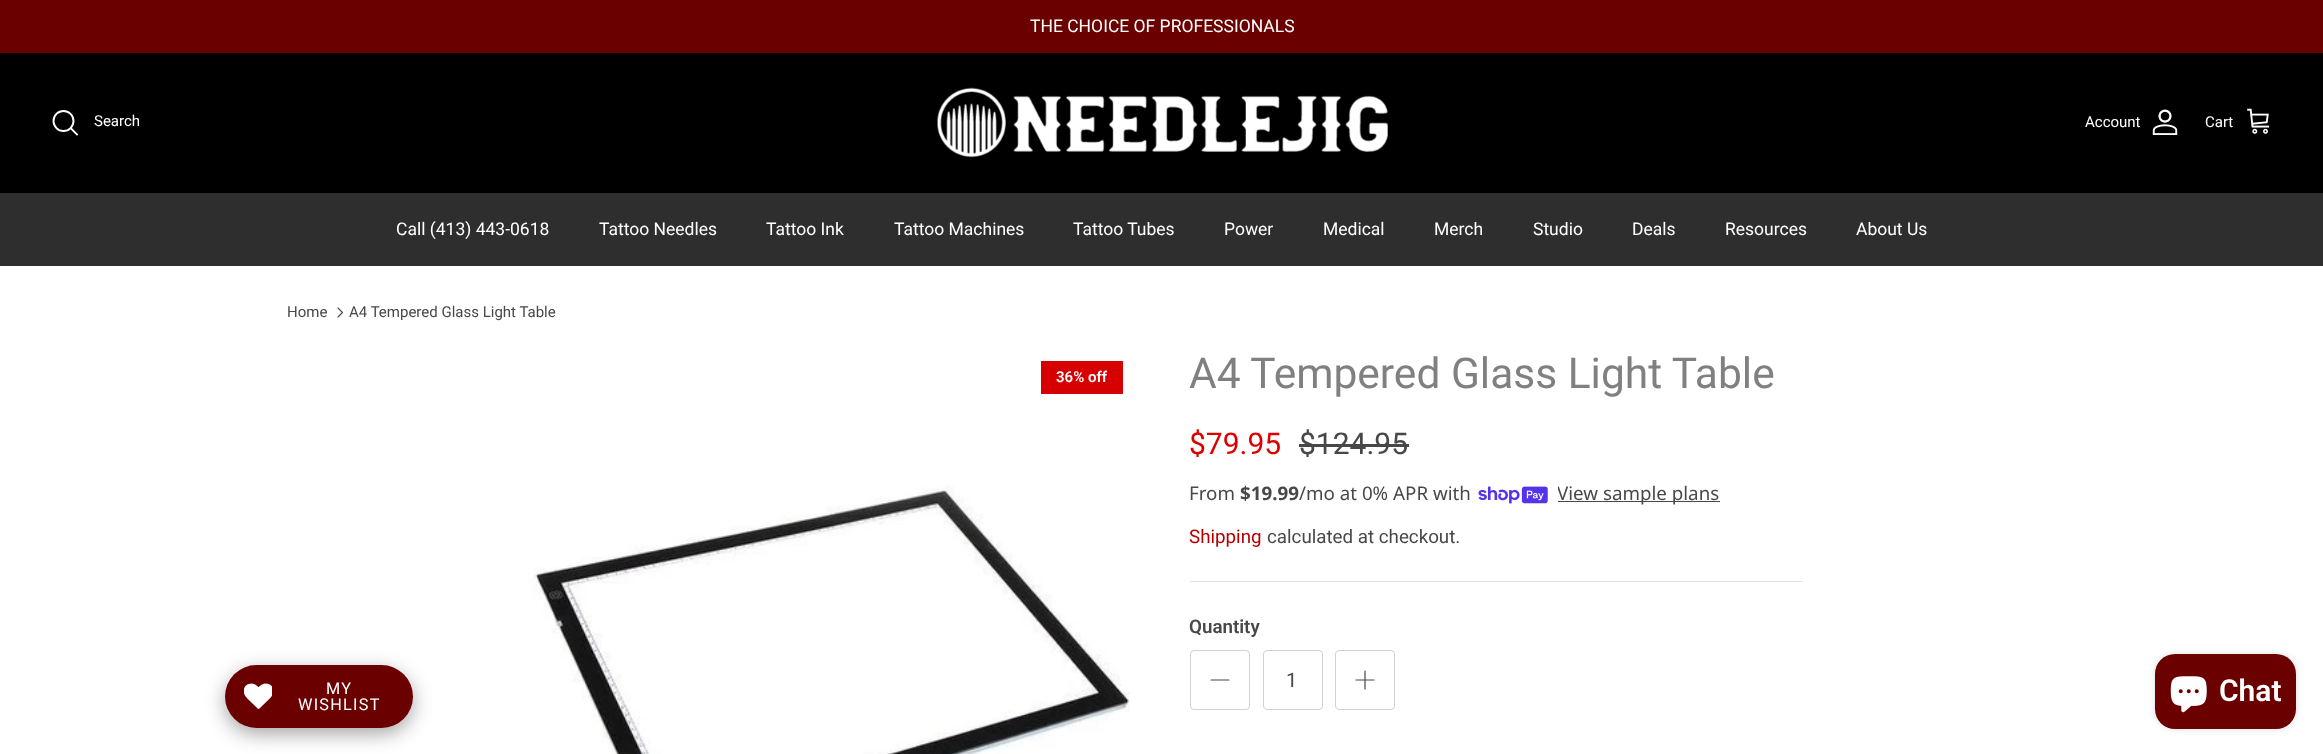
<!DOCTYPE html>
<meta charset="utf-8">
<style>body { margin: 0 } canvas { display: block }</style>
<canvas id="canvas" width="2323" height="754"></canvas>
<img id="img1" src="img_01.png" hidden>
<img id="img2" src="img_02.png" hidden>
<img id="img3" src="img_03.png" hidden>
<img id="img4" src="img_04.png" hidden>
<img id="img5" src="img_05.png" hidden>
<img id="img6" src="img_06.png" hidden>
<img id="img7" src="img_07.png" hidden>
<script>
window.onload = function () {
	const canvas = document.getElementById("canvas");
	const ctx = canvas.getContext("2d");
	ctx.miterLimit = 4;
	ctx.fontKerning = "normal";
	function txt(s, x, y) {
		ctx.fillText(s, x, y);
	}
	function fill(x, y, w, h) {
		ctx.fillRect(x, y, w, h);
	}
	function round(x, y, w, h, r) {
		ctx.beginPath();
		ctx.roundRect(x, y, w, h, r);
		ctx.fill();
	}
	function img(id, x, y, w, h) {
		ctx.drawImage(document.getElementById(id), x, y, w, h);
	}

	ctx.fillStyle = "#FFFFFF";
	fill(0, 0, 2323, 754);
	ctx.fillStyle = "#6B0000";
	fill(0, 0, 2323, 53);
	ctx.fillStyle = "#000000";
	fill(0, 53, 2323, 140);
	ctx.beginPath();
	ctx.arc(63.5, 121, 10, 0, Math.PI * 2);
	ctx.strokeStyle = "#FFFFFF";
	ctx.lineWidth = 1.9;
	ctx.stroke();
	ctx.beginPath();
	ctx.moveTo(71, 128.5);
	ctx.lineTo(77, 134.5);
	ctx.lineCap = "square";
	ctx.stroke();
	img("img1", 937, 87, 451, 71);
	img("img2", 2152, 109, 26, 26);
	img("img3", 2247, 108, 23, 26);
	ctx.fillStyle = "#2E2E2E";
	fill(0, 193, 2323, 73);
	ctx.beginPath();
	ctx.moveTo(338, 317);
	ctx.lineTo(342.5, 312.5);
	ctx.lineTo(338, 308);
	ctx.strokeStyle = "#484848";
	ctx.lineWidth = 1.1;
	ctx.lineCap = "round";
	ctx.lineJoin = "round";
	ctx.stroke();
	ctx.fillStyle = "#D60000";
	fill(1041, 361, 82, 33);
	img("img4", 528, 485, 602, 269);
	ctx.fillStyle = "#484848";
	fill(1299, 444, 110, 3);
	img("img5", 1478, 486, 70, 18);
	fill(1558, 501, 162, 1);
	ctx.fillStyle = "#E2E2E2";
	fill(1190, 581, 613, 1);
	ctx.beginPath();
	ctx.roundRect(1190.5, 650.5, 59, 59, 3.5);
	ctx.strokeStyle = "#D1D1D1";
	ctx.lineWidth = 1;
	ctx.lineJoin = "miter";
	ctx.stroke();
	ctx.beginPath();
	ctx.moveTo(1211, 680);
	ctx.lineTo(1229, 680);
	ctx.strokeStyle = "#484848";
	ctx.lineWidth = 1.2;
	ctx.lineJoin = "round";
	ctx.stroke();
	ctx.beginPath();
	ctx.roundRect(1263.5, 650.5, 59, 59, 3.5);
	ctx.strokeStyle = "#D1D1D1";
	ctx.lineWidth = 1;
	ctx.lineJoin = "miter";
	ctx.stroke();
	ctx.beginPath();
	ctx.roundRect(1335.5, 650.5, 59, 59, 3.5);
	ctx.stroke();
	ctx.beginPath();
	ctx.moveTo(1365, 671);
	ctx.lineTo(1365, 689);
	ctx.moveTo(1356, 680);
	ctx.lineTo(1374, 680);
	ctx.strokeStyle = "#484848";
	ctx.lineWidth = 1.2;
	ctx.lineJoin = "round";
	ctx.stroke();
	ctx.fillStyle = "rgba(0, 0, 0, 0.35)";
	ctx.filter = "blur(9.5px)";
	ctx.beginPath();
	ctx.roundRect(225, 671, 188, 63, 31.5);
	ctx.fill();
	ctx.filter = "none";
	ctx.fillStyle = "#6B0000";
	round(225, 665, 188, 63, 31.5);
	img("img6", 244, 683, 28, 26);
	ctx.fillStyle = "rgba(0, 0, 0, 0.15)";
	ctx.filter = "blur(3px)";
	ctx.beginPath();
	ctx.roundRect(2155, 654, 141, 75, 20);
	ctx.fill();
	ctx.filter = "none";
	ctx.fillStyle = "#6B0000";
	round(2155, 654, 141, 75, 20);
	img("img7", 2170, 676, 37, 37);
	ctx.font = "17.5px Roboto";
	ctx.fillStyle = "#FFFFFF";
	txt("THE CHOICE OF PROFESSIONALS", 1030, 32);
	ctx.font = "15px Roboto";
	txt("Search", 94, 126);
	txt("Account", 2085, 127);
	txt("Cart", 2205, 127);
	ctx.font = "17.5px Roboto";
	txt("Call (413) 443-0618", 396, 235);
	txt("Tattoo Needles", 599, 235);
	txt("Tattoo Ink", 766, 235);
	txt("Tattoo Machines", 894, 235);
	txt("Tattoo Tubes", 1073, 235);
	txt("Power", 1224, 235);
	txt("Medical", 1323, 235);
	txt("Merch", 1434, 235);
	txt("Studio", 1533, 235);
	txt("Deals", 1632, 235);
	txt("Resources", 1725, 235);
	txt("About Us", 1856, 235);
	ctx.font = "15px Roboto";
	ctx.fillStyle = "#484848";
	txt("Home", 287, 317);
	txt("A4 Tempered Glass Light Table", 349, 317);
	ctx.font = "600 15px Roboto";
	ctx.fillStyle = "#FFFFFF";
	txt("36% off", 1056, 382);
	ctx.font = "42.5px Roboto";
	ctx.fillStyle = "#808080";
	txt("A4 Tempered Glass Light Table", 1189, 388);
	ctx.font = "30px Roboto";
	ctx.fillStyle = "#DD0000";
	txt("$79.95", 1189, 454);
	ctx.fillStyle = "#484848";
	txt("$124.95", 1299, 454);
	ctx.font = "18.75px Noto Sans";
	txt("From", 1189, 500);
	ctx.font = "bold 18.75px Noto Sans";
	txt("$19.99", 1240, 500);
	ctx.font = "18.75px Noto Sans";
	txt("/mo at 0% APR with", 1299, 500);
	ctx.save();
	ctx.beginPath();
	ctx.rect(1558, 479, 162, 27);
	ctx.clip();
	txt("View sample plans", 1557, 500);
	ctx.restore();
	ctx.font = "18.75px Roboto";
	ctx.fillStyle = "#B60000";
	txt("Shipping", 1189, 543);
	ctx.fillStyle = "#484848";
	txt("calculated at checkout.", 1267, 543);
	ctx.font = "600 18.75px Roboto";
	txt("Quantity", 1189, 633);
	ctx.font = "20px Roboto";
	txt("1", 1286, 687);
	ctx.letterSpacing = "1.25px";
	ctx.font = "16.25px Roboto";
	ctx.fillStyle = "#FFFFFF";
	txt("MY", 326, 694);
	txt("WISHLIST", 298, 710);
	ctx.letterSpacing = "0px";
	ctx.font = "600 30px Roboto";
	txt("Chat", 2219, 701);
};
</script>
